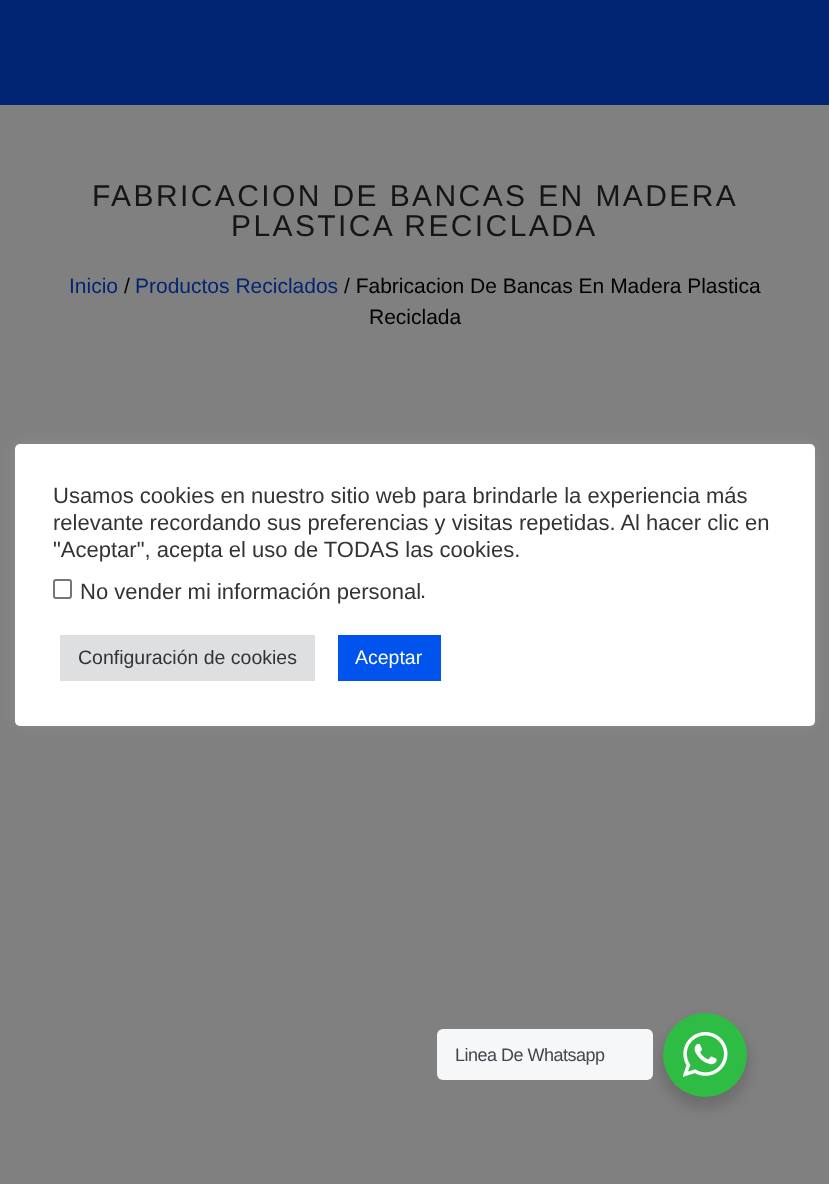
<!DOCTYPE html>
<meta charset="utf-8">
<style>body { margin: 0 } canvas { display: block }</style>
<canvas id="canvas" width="829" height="1184"></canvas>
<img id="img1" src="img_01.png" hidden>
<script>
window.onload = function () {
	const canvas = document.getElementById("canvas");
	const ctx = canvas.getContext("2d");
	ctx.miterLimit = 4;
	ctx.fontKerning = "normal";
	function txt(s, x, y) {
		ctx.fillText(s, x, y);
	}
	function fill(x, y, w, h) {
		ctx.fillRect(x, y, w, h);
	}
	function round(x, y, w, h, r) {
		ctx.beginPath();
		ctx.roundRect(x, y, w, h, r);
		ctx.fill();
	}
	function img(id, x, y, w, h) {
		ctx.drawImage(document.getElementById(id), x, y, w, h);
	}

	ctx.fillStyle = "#808080";
	fill(0, 0, 829, 1184);
	ctx.fillStyle = "#012572";
	fill(0, 0, 829, 105);
	ctx.fillStyle = "rgba(172, 171, 171, 0.3)";
	ctx.filter = "blur(7.5px)";
	ctx.beginPath();
	ctx.roundRect(15, 443, 800, 282, 5);
	ctx.fill();
	ctx.filter = "none";
	ctx.fillStyle = "#FFFFFF";
	round(15, 444, 800, 282, 5);
	ctx.beginPath();
	ctx.roundRect(54, 580, 17, 18, 2);
	ctx.strokeStyle = "#767676";
	ctx.lineWidth = 2;
	ctx.stroke();
	ctx.fillStyle = "#DEDFE0";
	fill(60, 635, 255, 46);
	ctx.fillStyle = "#0053ED";
	fill(338, 635, 103, 46);
	ctx.fillStyle = "rgba(0, 0, 0, 0.14)";
	ctx.filter = "blur(6px)";
	ctx.beginPath();
	ctx.roundRect(660, 1019, 90, 90, 45);
	ctx.fill();
	ctx.filter = "none";
	ctx.fillStyle = "#F5F7F9";
	round(437, 1029, 216, 51, 6);
	ctx.fillStyle = "#2FBC44";
	ctx.beginPath();
	ctx.arc(705, 1055, 42, 0, Math.PI * 2);
	ctx.fill();
	img("img1", 683, 1032, 45, 45);
	ctx.letterSpacing = "2.4px";
	ctx.font = "30px Liberation Sans";
	ctx.fillStyle = "#151515";
	txt("FABRICACION DE BANCAS EN MADERA", 92, 206);
	txt("PLASTICA RECICLADA", 231, 236);
	ctx.letterSpacing = "0px";
	ctx.font = "21px Liberation Sans";
	ctx.fillStyle = "#012572";
	txt("Inicio", 69, 293);
	ctx.fillStyle = "#000000";
	txt("/", 124, 293);
	ctx.fillStyle = "#012572";
	txt("Productos Reciclados", 135, 293);
	ctx.fillStyle = "#000000";
	txt("/ Fabricacion De Bancas En Madera Plastica", 344, 293);
	txt("Reciclada", 369, 324);
	ctx.font = "22px Liberation Sans";
	ctx.fillStyle = "#333333";
	txt("Usamos cookies en nuestro sitio web para brindarle la experiencia más", 53, 503);
	txt("relevante recordando sus preferencias y visitas repetidas. Al hacer clic en", 53, 530);
	txt("\"Aceptar\", acepta el uso de TODAS las cookies.", 53, 557);
	txt("No vender mi información personal", 80, 599);
	txt(".", 420, 598);
	ctx.font = "19.5px Liberation Sans";
	txt("Configuración de cookies", 78, 664);
	ctx.fillStyle = "#FFFFFF";
	txt("Aceptar", 355, 664);
	ctx.letterSpacing = "-0.5px";
	ctx.font = "18px Liberation Sans";
	ctx.fillStyle = "#43474E";
	txt("Linea De Whatsapp", 455, 1061);
};
</script>
